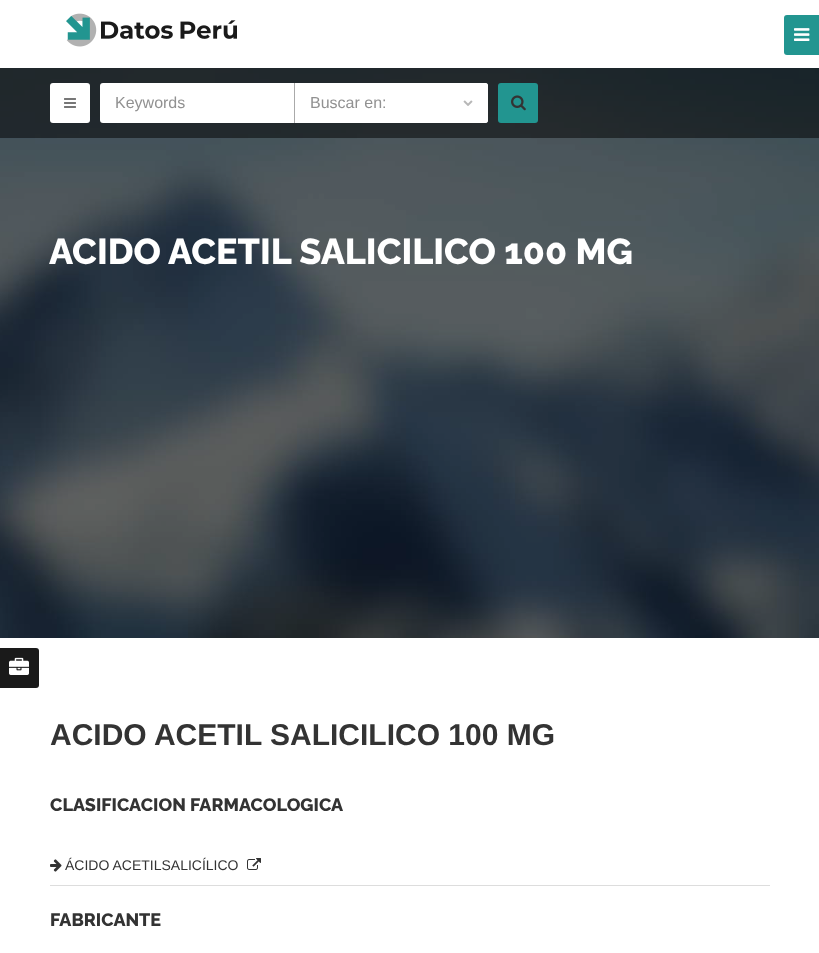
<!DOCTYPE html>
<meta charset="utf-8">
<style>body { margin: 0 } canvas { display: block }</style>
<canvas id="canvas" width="819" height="953"></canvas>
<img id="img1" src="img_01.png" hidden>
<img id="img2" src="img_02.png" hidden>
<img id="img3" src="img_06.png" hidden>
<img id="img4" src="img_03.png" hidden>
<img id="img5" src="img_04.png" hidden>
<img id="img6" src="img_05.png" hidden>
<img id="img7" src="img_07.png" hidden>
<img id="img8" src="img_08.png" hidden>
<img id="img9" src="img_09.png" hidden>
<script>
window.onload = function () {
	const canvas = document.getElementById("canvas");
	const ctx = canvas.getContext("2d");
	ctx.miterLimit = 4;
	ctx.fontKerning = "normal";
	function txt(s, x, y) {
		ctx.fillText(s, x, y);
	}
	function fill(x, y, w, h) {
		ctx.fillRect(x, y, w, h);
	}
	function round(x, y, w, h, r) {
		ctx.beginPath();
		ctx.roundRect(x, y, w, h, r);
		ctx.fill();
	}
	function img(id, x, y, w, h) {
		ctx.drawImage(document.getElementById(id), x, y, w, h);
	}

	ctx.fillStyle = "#FFFFFF";
	fill(0, 0, 819, 953);
	img("img1", 66, 13, 171, 34);
	ctx.fillStyle = "#229590";
	ctx.beginPath();
	ctx.roundRect(784, 15, 35, 40, [3, 0, 0, 3]);
	ctx.fill();
	img("img2", 794, 28, 16, 13);
	img("img3", 0, 68, 819, 570);
	ctx.fillStyle = "rgba(0, 0, 0, 0.5)";
	fill(0, 68, 819, 70);
	ctx.fillStyle = "#FFFFFF";
	round(50, 83, 40, 40, 3);
	img("img4", 64, 98, 12, 10);
	ctx.beginPath();
	ctx.roundRect(100, 83, 194, 40, [3, 0, 0, 3]);
	ctx.fill();
	ctx.fillStyle = "#AAAAAA";
	fill(294, 83, 1, 40);
	ctx.fillStyle = "#FFFFFF";
	ctx.beginPath();
	ctx.roundRect(295, 83, 193, 40, [0, 3, 3, 0]);
	ctx.fill();
	round(295, 83, 193, 40, 3);
	img("img5", 463, 100, 10, 6);
	ctx.fillStyle = "#229590";
	round(498, 83, 40, 40, 3);
	img("img6", 511, 95, 15, 16);
	ctx.fillStyle = "#1A1A1A";
	ctx.beginPath();
	ctx.roundRect(0, 648, 39, 40, [0, 3, 3, 0]);
	ctx.fill();
	img("img7", 9, 657, 20, 18);
	ctx.fillStyle = "#DDDDDD";
	fill(50, 885, 720, 1);
	img("img8", 50, 859, 12, 13);
	img("img9", 247, 858, 14, 12);
	ctx.font = "16px Liberation Sans";
	ctx.fillStyle = "#919191";
	txt("Keywords", 115, 108);
	txt("Buscar en:", 310, 108);
	ctx.font = "100 36px Raleway";
	ctx.fillStyle = "#FFFFFF";
	txt("ACIDO ACETIL SALICILICO 100 MG", 49, 264);
	ctx.font = "bold 30px Liberation Sans";
	ctx.fillStyle = "#333333";
	txt("ACIDO ACETIL SALICILICO 100 MG", 50, 745);
	ctx.font = "100 18px Raleway";
	txt("CLASIFICACION FARMACOLOGICA", 50, 811);
	ctx.font = "14px Liberation Sans";
	txt("ÁCIDO ACETILSALICÍLICO", 65, 870);
	ctx.font = "100 18px Raleway";
	txt("FABRICANTE", 50, 926);
};
</script>
